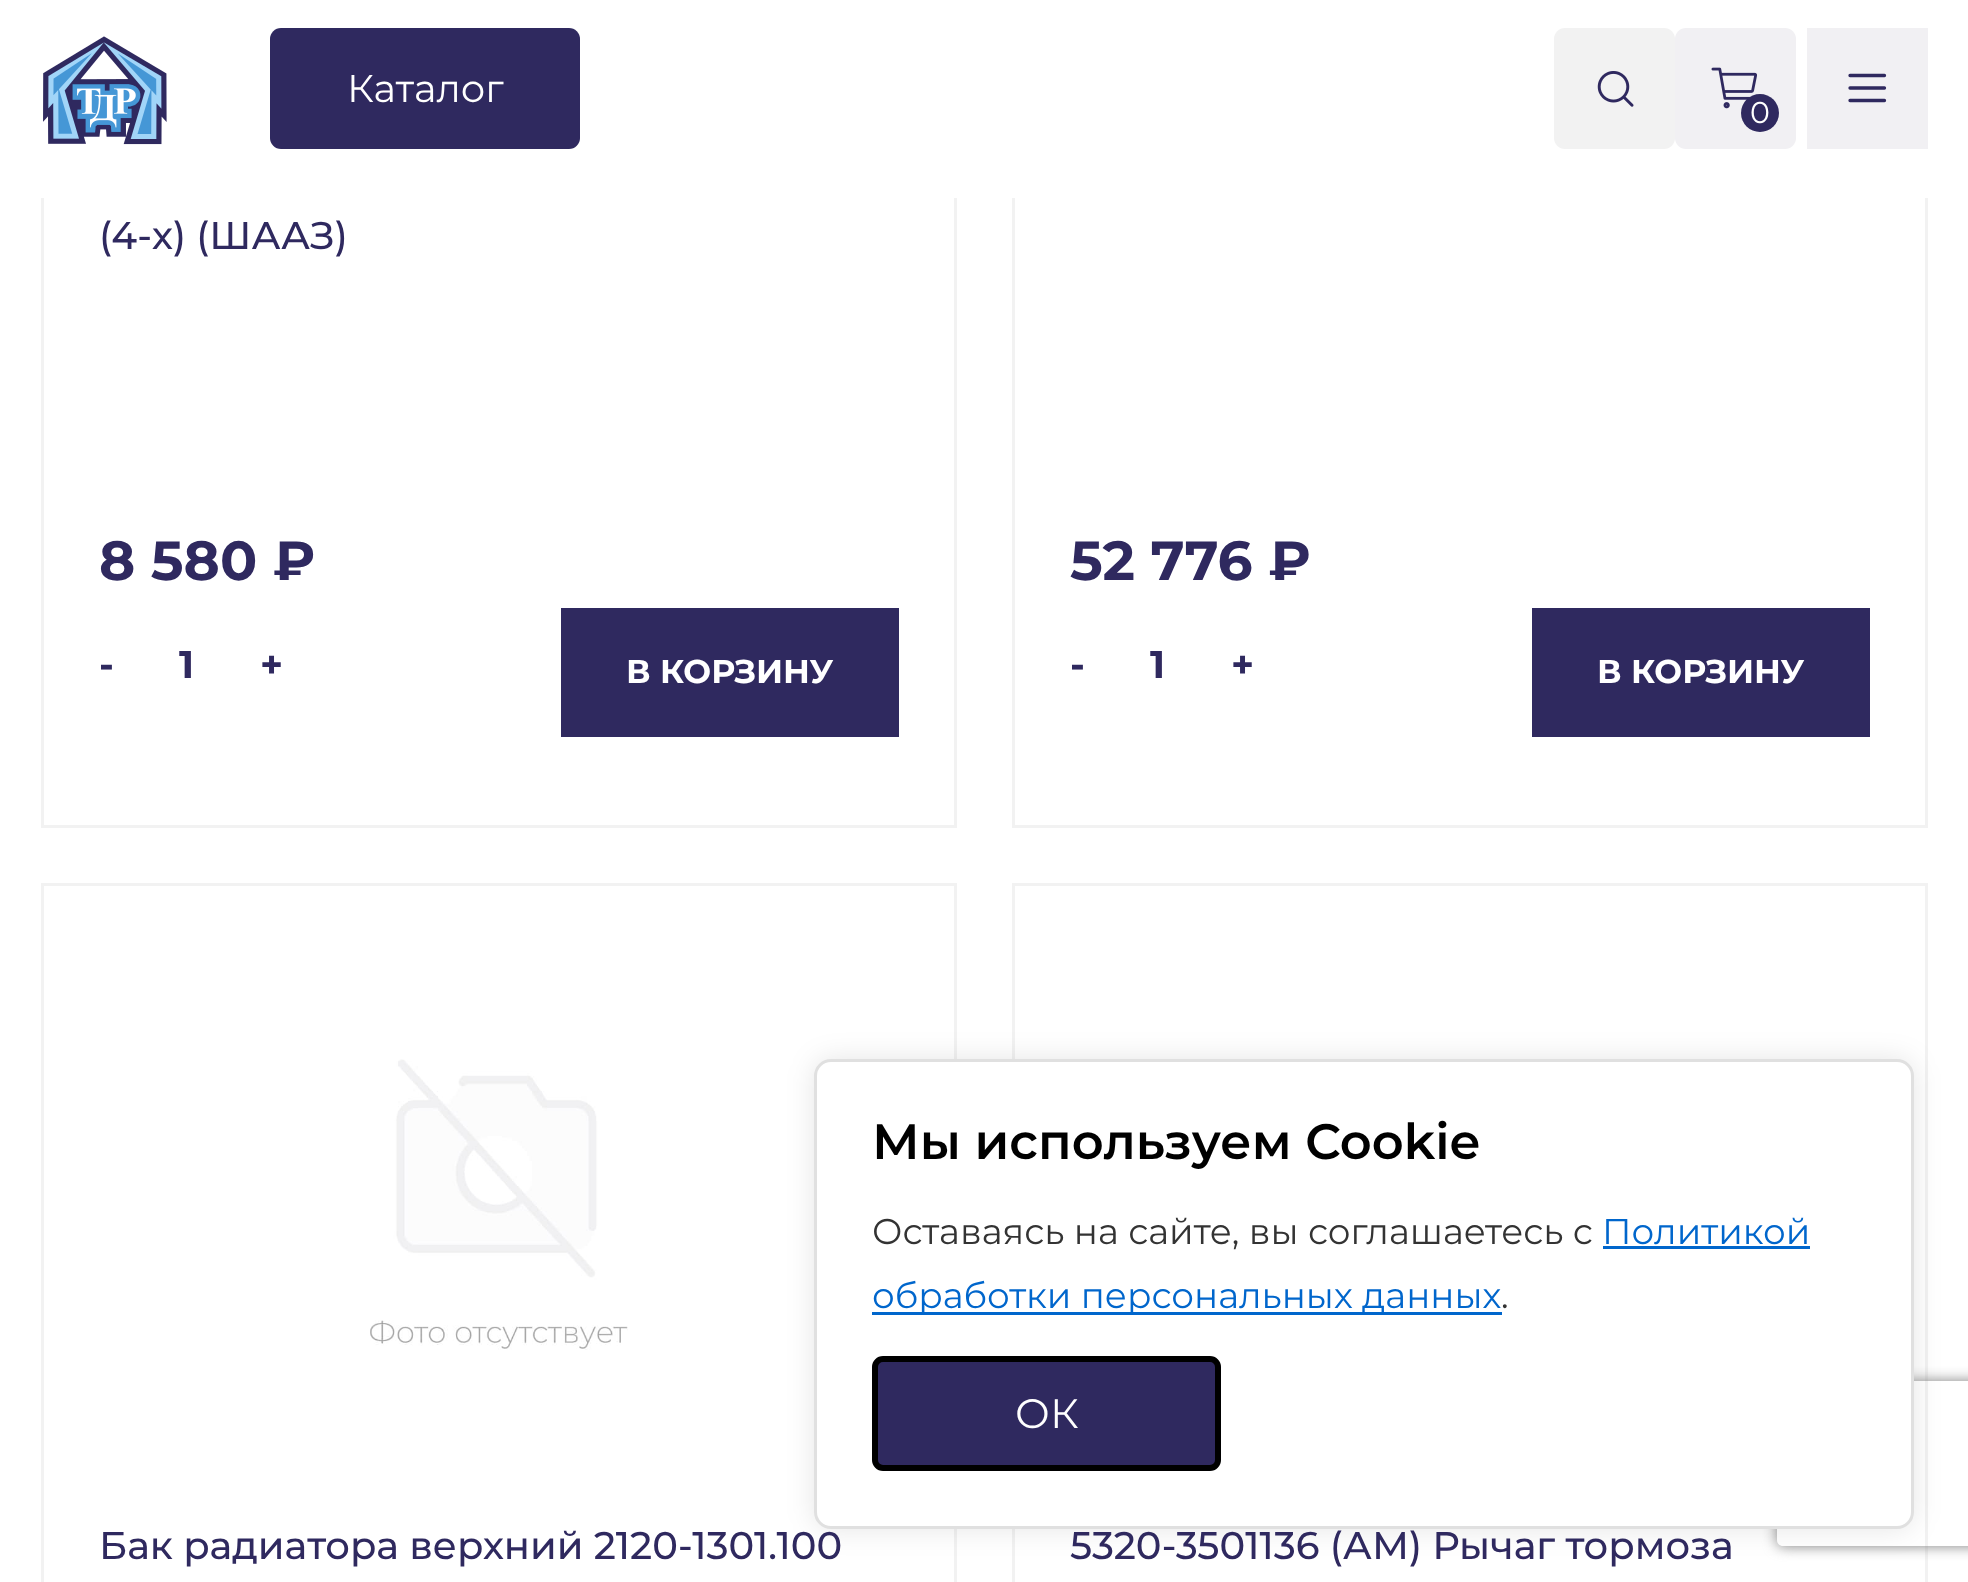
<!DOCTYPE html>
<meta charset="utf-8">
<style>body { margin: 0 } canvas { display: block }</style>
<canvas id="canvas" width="1968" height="1582"></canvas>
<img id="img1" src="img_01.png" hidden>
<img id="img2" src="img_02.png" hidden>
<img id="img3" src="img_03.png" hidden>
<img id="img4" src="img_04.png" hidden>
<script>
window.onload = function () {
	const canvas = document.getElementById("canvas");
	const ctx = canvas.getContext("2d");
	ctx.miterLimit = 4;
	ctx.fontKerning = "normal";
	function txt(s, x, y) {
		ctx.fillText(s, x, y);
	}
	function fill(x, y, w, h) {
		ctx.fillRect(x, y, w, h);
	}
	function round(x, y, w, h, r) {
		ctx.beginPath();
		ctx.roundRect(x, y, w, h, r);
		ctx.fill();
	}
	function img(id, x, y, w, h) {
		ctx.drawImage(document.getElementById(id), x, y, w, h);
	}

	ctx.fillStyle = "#FFFFFF";
	fill(0, 0, 1968, 1582);
	ctx.strokeStyle = "#F2F2F2";
	ctx.lineWidth = 3;
	ctx.strokeRect(42.5, -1.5, 913, 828);
	ctx.strokeRect(1013.5, -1.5, 913, 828);
	fill(41, 0, 1887, 198);
	img("img1", 43, 36, 124, 109);
	ctx.fillStyle = "#2F295F";
	round(270, 28, 310, 121, 11);
	ctx.fillStyle = "#F2F2F2";
	round(1554, 28, 121, 121, 11);
	img("img2", 1597, 71, 37, 36);
	ctx.fillStyle = "#F1F0F3";
	fill(1807, 28, 121, 121);
	ctx.beginPath();
	ctx.moveTo(1850, 75.5);
	ctx.lineTo(1884.5, 75.5);
	ctx.moveTo(1850, 88);
	ctx.lineTo(1884.5, 88);
	ctx.moveTo(1850, 100.5);
	ctx.lineTo(1884.5, 100.5);
	ctx.strokeStyle = "#2F295F";
	ctx.lineWidth = 3.3;
	ctx.lineCap = "round";
	ctx.lineJoin = "round";
	ctx.stroke();
	round(1675, 28, 121, 121, 11);
	img("img3", 1711, 67, 46, 42);
	ctx.fillStyle = "#2F295F";
	ctx.beginPath();
	ctx.arc(1760, 113, 19, 0, Math.PI * 2);
	ctx.fill();
	fill(561, 608, 338, 129);
	fill(1532, 608, 338, 129);
	ctx.strokeStyle = "#F2F2F2";
	ctx.lineWidth = 3;
	ctx.lineJoin = "miter";
	ctx.strokeRect(42.5, 884.5, 913, 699);
	img("img4", 370, 1059, 258, 291);
	ctx.strokeRect(1013.5, 884.5, 913, 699);
	ctx.fillStyle = "rgba(0, 0, 0, 0.1)";
	ctx.filter = "blur(14px)";
	ctx.beginPath();
	ctx.roundRect(814, 1059, 1100, 470, 17);
	ctx.fill();
	ctx.filter = "none";
	ctx.save();
	ctx.beginPath();
	ctx.moveTo(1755, 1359);
	ctx.lineTo(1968, 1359);
	ctx.lineTo(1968, 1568);
	ctx.lineTo(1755, 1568);
	ctx.closePath();
	ctx.moveTo(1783, 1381);
	ctx.lineTo(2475, 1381);
	ctx.bezierCurveTo(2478.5, 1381, 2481, 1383.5, 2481, 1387);
	ctx.lineTo(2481, 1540);
	ctx.bezierCurveTo(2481, 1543.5, 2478.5, 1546, 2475, 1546);
	ctx.lineTo(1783, 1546);
	ctx.bezierCurveTo(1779.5, 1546, 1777, 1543.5, 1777, 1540);
	ctx.lineTo(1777, 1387);
	ctx.bezierCurveTo(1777, 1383.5, 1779.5, 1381, 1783, 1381);
	ctx.closePath();
	ctx.clip("evenodd");
	ctx.fillStyle = "#808080";
	ctx.filter = "blur(7px)";
	ctx.beginPath();
	ctx.roundRect(1777, 1381, 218, 165, 6);
	ctx.fill();
	ctx.filter = "none";
	ctx.restore();
	ctx.fillStyle = "#FFFFFF";
	ctx.beginPath();
	ctx.roundRect(815.5, 1060.5, 1097, 467, 15.5);
	ctx.fill();
	ctx.strokeStyle = "#E0E0E0";
	ctx.stroke();
	ctx.fillStyle = "#0066CC";
	fill(1603, 1246, 207, 3);
	fill(872, 1312, 630, 3);
	ctx.fillStyle = "#2F295F";
	ctx.beginPath();
	ctx.roundRect(875, 1359, 343, 109, 8);
	ctx.fill();
	ctx.strokeStyle = "#000000";
	ctx.lineWidth = 6;
	ctx.stroke();
	ctx.font = "38.5px Montserrat";
	ctx.fillStyle = "#FFFFFF";
	txt("Каталог", 347, 102);
	ctx.font = "30px Montserrat";
	txt("0", 1750, 123);
	ctx.font = "500 38.5px Montserrat";
	ctx.fillStyle = "#2F295F";
	txt("(4-х) (ШААЗ)", 99, 249);
	ctx.font = "bold 55px Montserrat";
	txt("8 580 ₽", 99, 580);
	ctx.font = "bold 38.5px Montserrat";
	txt("-", 99, 678);
	txt("1", 179, 678);
	txt("+", 260, 678);
	ctx.font = "bold 33px Montserrat";
	ctx.fillStyle = "#FFFFFF";
	txt("В КОРЗИНУ", 626, 683);
	ctx.font = "bold 55px Montserrat";
	ctx.fillStyle = "#2F295F";
	txt("52 776 ₽", 1070, 580);
	ctx.font = "bold 38.5px Montserrat";
	txt("-", 1070, 678);
	txt("1", 1150, 678);
	txt("+", 1231, 678);
	ctx.font = "bold 33px Montserrat";
	ctx.fillStyle = "#FFFFFF";
	txt("В КОРЗИНУ", 1597, 683);
	ctx.font = "500 38.5px Montserrat";
	ctx.fillStyle = "#2F295F";
	txt("Бак радиатора верхний 2120-1301.100", 99, 1559);
	txt("5320-3501136 (АМ) Рычаг тормоза", 1070, 1559);
	ctx.font = "600 49.5px Montserrat";
	ctx.fillStyle = "#000000";
	txt("Мы используем Cookie", 872, 1159);
	ctx.font = "35.75px Montserrat";
	ctx.fillStyle = "#333333";
	txt("Оставаясь на сайте, вы соглашаетесь с", 872, 1244);
	ctx.fillStyle = "#0066CC";
	txt("Политикой", 1602, 1244);
	txt("обработки персональных данных", 872, 1308);
	ctx.fillStyle = "#333333";
	txt(".", 1501, 1308);
	ctx.font = "41px Montserrat";
	ctx.fillStyle = "#FFFFFF";
	txt("ОК", 1015, 1428);
};
</script>
